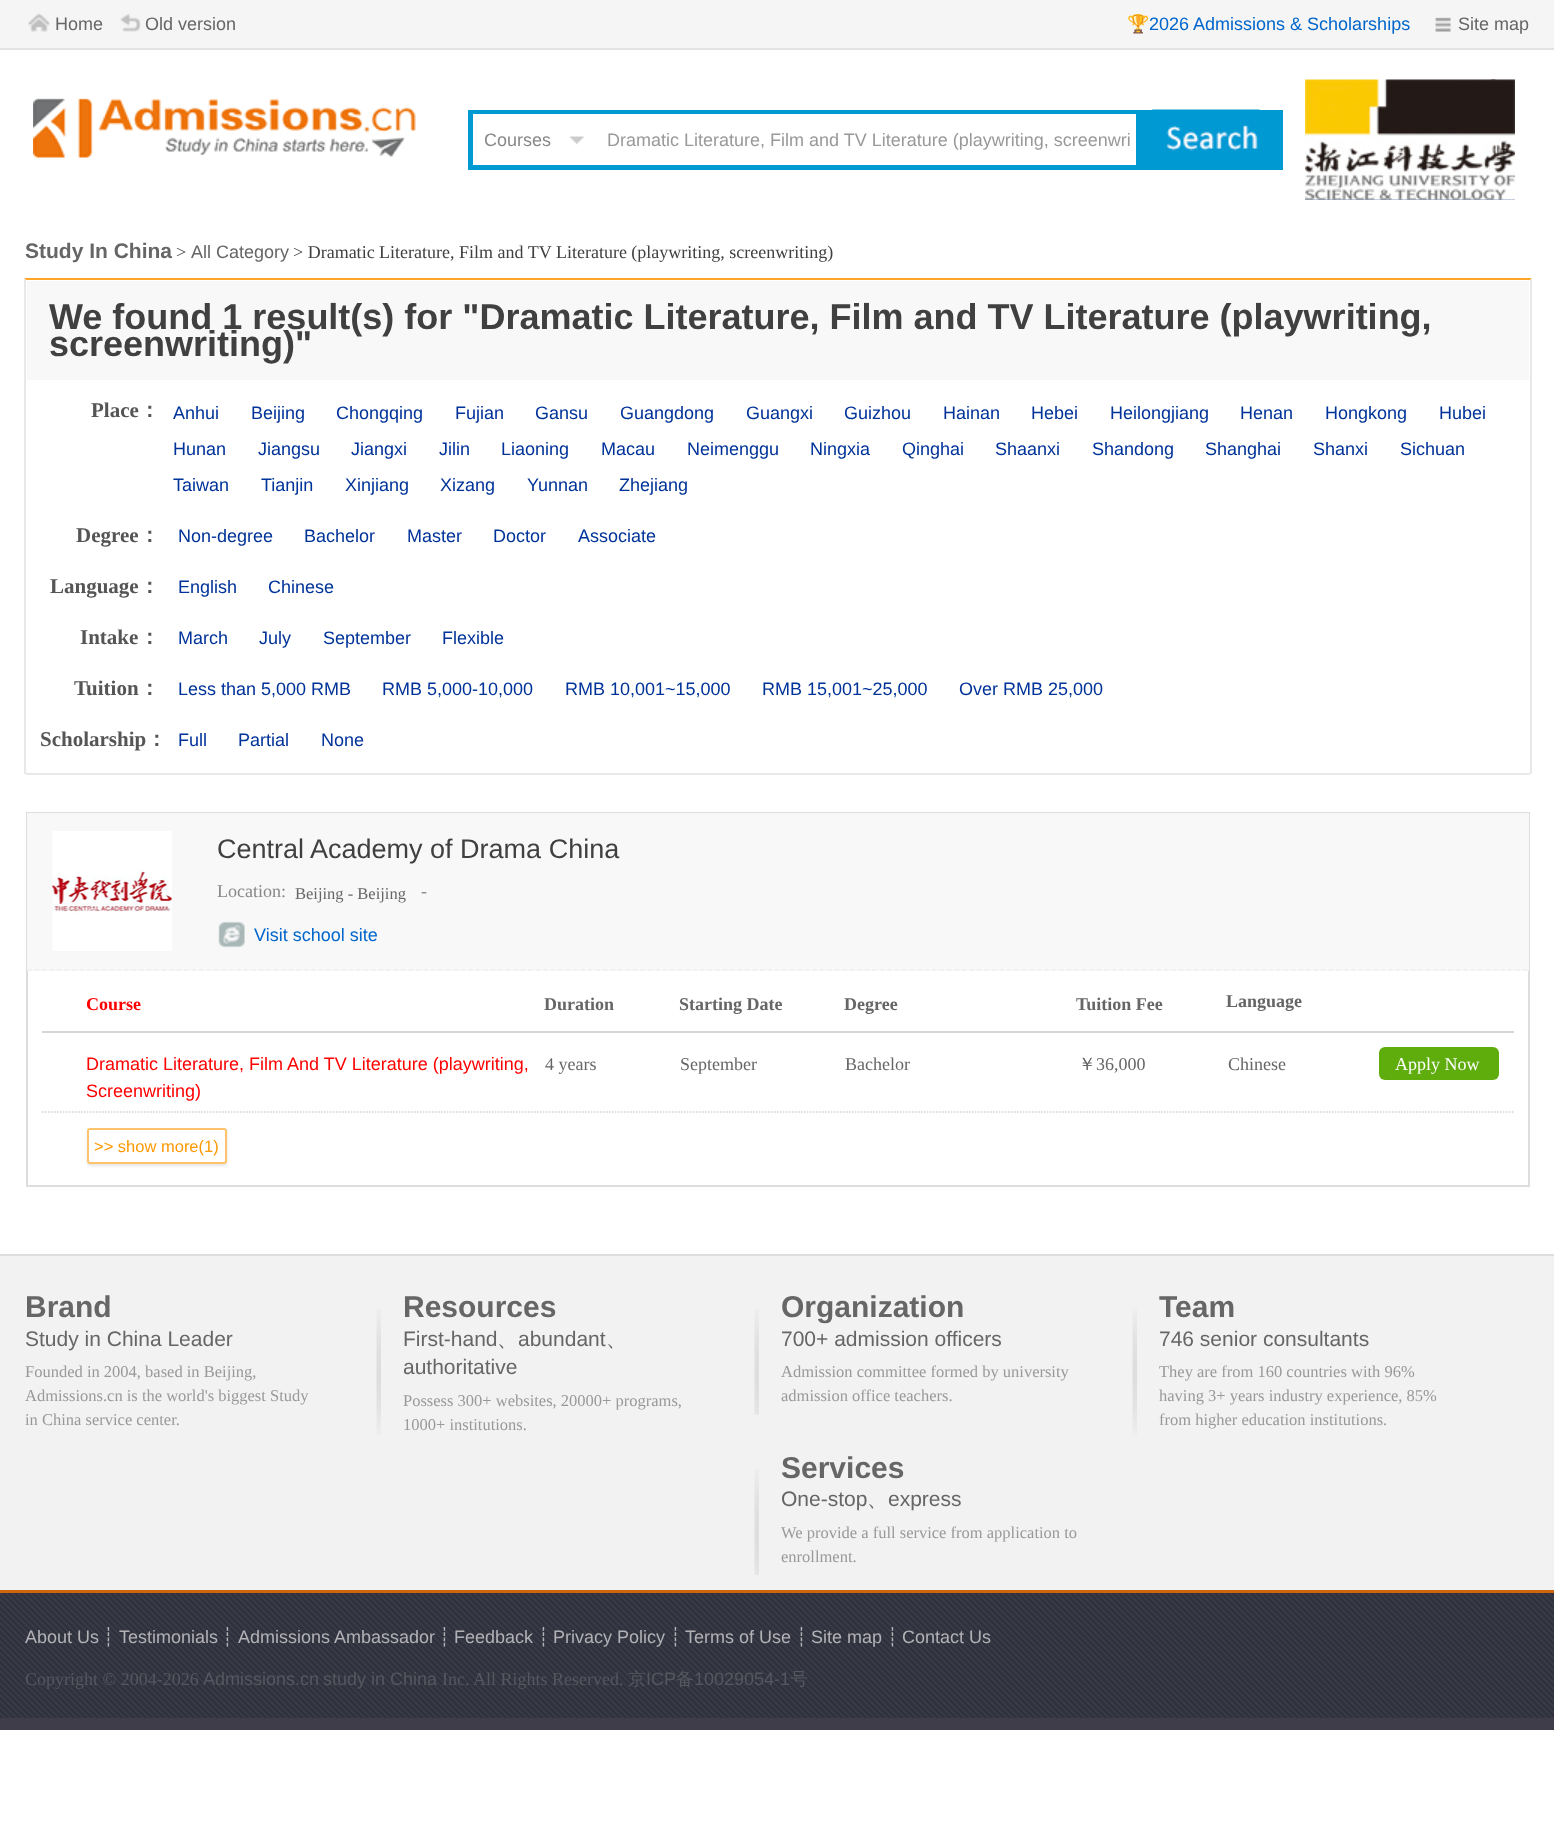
<!DOCTYPE html>
<meta charset="utf-8">
<style>body { margin: 0 } canvas { display: block }</style>
<canvas id="canvas" width="1554" height="1833"></canvas>
<img id="img1" src="img_01.png" hidden>
<img id="img2" src="img_02.png" hidden>
<img id="img3" src="img_03.png" hidden>
<img id="img4" src="img_04.png" hidden>
<img id="img5" src="img_05.png" hidden>
<img id="img6" src="img_06.png" hidden>
<img id="img7" src="img_07.png" hidden>
<img id="img8" src="img_08.png" hidden>
<img id="img9" src="img_09.png" hidden>
<img id="img10" src="img_10.png" hidden>
<img id="img11" src="img_11.png" hidden>
<img id="img12" src="img_12.png" hidden>
<img id="img13" src="img_13.png" hidden>
<img id="img14" src="img_14.png" hidden>
<script>
window.onload = function () {
	const canvas = document.getElementById("canvas");
	const ctx = canvas.getContext("2d");
	ctx.miterLimit = 4;
	ctx.fontKerning = "normal";
	function txt(s, x, y) {
		ctx.fillText(s, x, y);
	}
	function fill(x, y, w, h) {
		ctx.fillRect(x, y, w, h);
	}
	function round(x, y, w, h, r) {
		ctx.beginPath();
		ctx.roundRect(x, y, w, h, r);
		ctx.fill();
	}
	function img(id, x, y, w, h) {
		ctx.drawImage(document.getElementById(id), x, y, w, h);
	}

	ctx.fillStyle = "#FFFFFF";
	fill(0, 0, 1554, 1833);
	ctx.fillStyle = "#F5F5F5";
	fill(0, 0, 1554, 48);
	ctx.fillStyle = "#E3E3E3";
	fill(0, 48, 1554, 2);
	img("img1", 28, 13, 22, 19);
	img("img2", 120, 13, 21, 19);
	img("img3", 1435, 17, 16, 15);
	img("img4", 33, 98, 383, 60);
	ctx.fillStyle = "#0099D1";
	fill(468, 110, 815, 60);
	ctx.fillStyle = "#FFFFFF";
	fill(473, 114, 663, 51);
	img("img5", 570, 136, 14, 9);
	img("img6", 1151, 109, 109, 42);
	img("img7", 1305, 79, 210, 121);
	img("img8", 1305, 79, 210, 121);
	ctx.fillStyle = "#FFA626";
	ctx.beginPath();
	ctx.moveTo(24, 278);
	ctx.lineTo(1532, 278);
	ctx.lineTo(1530, 280);
	ctx.lineTo(26, 280);
	ctx.closePath();
	ctx.fill();
	ctx.fillStyle = "#E8E8E8";
	ctx.beginPath();
	ctx.moveTo(1532, 278);
	ctx.lineTo(1532, 774);
	ctx.lineTo(1530, 774);
	ctx.lineTo(1530, 280);
	ctx.closePath();
	ctx.fill();
	ctx.beginPath();
	ctx.moveTo(24, 774);
	ctx.lineTo(24, 278);
	ctx.lineTo(26, 280);
	ctx.lineTo(26, 774);
	ctx.closePath();
	ctx.fill();
	ctx.fillStyle = "#F8F8F8";
	fill(27, 281, 1502, 99);
	ctx.fillStyle = "#E8E8E8";
	fill(26, 773, 1504, 2);
	ctx.strokeStyle = "#DDDDDD";
	ctx.lineWidth = 2;
	ctx.strokeRect(27, 813, 1502, 373);
	ctx.fillStyle = "#F8F8F8";
	fill(27, 813, 1502, 158);
	ctx.beginPath();
	ctx.moveTo(27, 970);
	ctx.lineTo(1528.5, 970);
	ctx.strokeStyle = "#EEEEEE";
	ctx.lineWidth = 1.5;
	ctx.setLineDash([4.5, 2.98]);
	ctx.stroke();
	img("img9", 52, 831, 120, 120);
	img("img10", 218, 921, 27, 27);
	ctx.fillStyle = "#D7D7D7";
	fill(42, 1031, 1472, 2);
	ctx.beginPath();
	ctx.moveTo(42, 1112);
	ctx.lineTo(1513.5, 1112);
	ctx.strokeStyle = "#D0D0D0";
	ctx.setLineDash([1.5, 1.5]);
	ctx.stroke();
	ctx.fillStyle = "#5FAD0C";
	round(1379, 1047, 120, 33, 6);
	ctx.save();
	ctx.beginPath();
	ctx.moveTo(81, 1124);
	ctx.lineTo(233, 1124);
	ctx.lineTo(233, 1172);
	ctx.lineTo(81, 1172);
	ctx.closePath();
	ctx.moveTo(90, 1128);
	ctx.lineTo(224, 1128);
	ctx.bezierCurveTo(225.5, 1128, 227, 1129.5, 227, 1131);
	ctx.lineTo(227, 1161);
	ctx.bezierCurveTo(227, 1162.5, 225.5, 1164, 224, 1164);
	ctx.lineTo(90, 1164);
	ctx.bezierCurveTo(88.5, 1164, 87, 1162.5, 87, 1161);
	ctx.lineTo(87, 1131);
	ctx.bezierCurveTo(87, 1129.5, 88.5, 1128, 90, 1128);
	ctx.closePath();
	ctx.clip("evenodd");
	ctx.fillStyle = "rgba(0, 0, 0, 0.1)";
	ctx.filter = "blur(1.5px)";
	ctx.beginPath();
	ctx.roundRect(87, 1130, 140, 36, 3);
	ctx.fill();
	ctx.filter = "none";
	ctx.restore();
	ctx.beginPath();
	ctx.roundRect(88, 1129, 138, 34, 2);
	ctx.strokeStyle = "#FFC36B";
	ctx.lineWidth = 2;
	ctx.setLineDash([]);
	ctx.stroke();
	ctx.fillStyle = "#F2F2F2";
	fill(0, 1256, 1554, 334);
	ctx.fillStyle = "#DDDDDD";
	fill(0, 1254, 1554, 2);
	img("img11", 376, 1309, 5, 126);
	img("img12", 754, 1309, 5, 106);
	img("img11", 1132, 1309, 5, 126);
	img("img13", 754, 1469, 5, 106);
	ctx.fillStyle = "#2F313D";
	fill(0, 1593, 1554, 125);
	img("img14", 0, 1593, 1554, 125);
	ctx.fillStyle = "#CF650C";
	fill(0, 1590, 1554, 3);
	ctx.fillStyle = "#3E3D49";
	fill(0, 1718, 1554, 12);
	ctx.font = "18px Liberation Sans";
	ctx.fillStyle = "#666666";
	txt("Home", 55, 30);
	txt("Old version", 145, 30);
	ctx.font = "18px Noto Color Emoji";
	ctx.fillStyle = "#0066CC";
	txt("🏆", 1127, 30);
	ctx.font = "18px Liberation Sans";
	txt("2026 Admissions & Scholarships", 1149, 30);
	ctx.fillStyle = "#666666";
	txt("Site map", 1458, 30);
	ctx.fillStyle = "#888888";
	txt("Courses", 484, 146);
	ctx.fillStyle = "#999999";
	txt("Dramatic Literature, Film and TV Literature (playwriting, screenwri", 607, 146);
	ctx.font = "bold 21px Liberation Sans";
	ctx.fillStyle = "#666666";
	txt("Study In China", 25, 258);
	ctx.font = "18px Liberation Serif";
	ctx.fillStyle = "#404040";
	txt(">", 176, 258);
	ctx.font = "18px Liberation Sans";
	ctx.fillStyle = "#666666";
	txt("All Category", 191, 258);
	ctx.font = "18px Liberation Serif";
	ctx.fillStyle = "#404040";
	txt("> Dramatic Literature, Film and TV Literature (playwriting, screenwriting)", 293, 258);
	ctx.font = "bold 36px Liberation Sans";
	txt("We found 1 result(s) for \"Dramatic Literature, Film and TV Literature (playwriting,", 49, 329);
	txt("screenwriting)\"", 49, 356);
	ctx.font = "bold 21px Liberation Serif";
	ctx.fillStyle = "#555555";
	txt("Place", 91, 417);
	ctx.font = "bold 21px WenQuanYi Zen Hei";
	txt("：", 139, 417);
	ctx.font = "18px Liberation Sans";
	ctx.fillStyle = "#003399";
	txt("Anhui", 173, 419);
	txt("Beijing", 251, 419);
	txt("Chongqing", 336, 419);
	txt("Fujian", 455, 419);
	txt("Gansu", 535, 419);
	txt("Guangdong", 620, 419);
	txt("Guangxi", 746, 419);
	txt("Guizhou", 844, 419);
	txt("Hainan", 943, 419);
	txt("Hebei", 1031, 419);
	txt("Heilongjiang", 1110, 419);
	txt("Henan", 1240, 419);
	txt("Hongkong", 1325, 419);
	txt("Hubei", 1439, 419);
	txt("Hunan", 173, 455);
	txt("Jiangsu", 258, 455);
	txt("Jiangxi", 351, 455);
	txt("Jilin", 439, 455);
	txt("Liaoning", 501, 455);
	txt("Macau", 601, 455);
	txt("Neimenggu", 687, 455);
	txt("Ningxia", 810, 455);
	txt("Qinghai", 902, 455);
	txt("Shaanxi", 995, 455);
	txt("Shandong", 1092, 455);
	txt("Shanghai", 1205, 455);
	txt("Shanxi", 1313, 455);
	txt("Sichuan", 1400, 455);
	txt("Taiwan", 173, 491);
	txt("Tianjin", 261, 491);
	txt("Xinjiang", 345, 491);
	txt("Xizang", 440, 491);
	txt("Yunnan", 527, 491);
	txt("Zhejiang", 619, 491);
	ctx.font = "bold 21px Liberation Serif";
	ctx.fillStyle = "#555555";
	txt("Degree", 76, 542);
	ctx.font = "bold 21px WenQuanYi Zen Hei";
	txt("：", 139, 542);
	ctx.font = "18px Liberation Sans";
	ctx.fillStyle = "#003399";
	txt("Non-degree", 178, 542);
	txt("Bachelor", 304, 542);
	txt("Master", 407, 542);
	txt("Doctor", 493, 542);
	txt("Associate", 578, 542);
	ctx.font = "bold 21px Liberation Serif";
	ctx.fillStyle = "#555555";
	txt("Language", 50, 593);
	ctx.font = "bold 21px WenQuanYi Zen Hei";
	txt("：", 139, 593);
	ctx.font = "18px Liberation Sans";
	ctx.fillStyle = "#003399";
	txt("English", 178, 593);
	txt("Chinese", 268, 593);
	ctx.font = "bold 21px Liberation Serif";
	ctx.fillStyle = "#555555";
	txt("Intake", 80, 644);
	ctx.font = "bold 21px WenQuanYi Zen Hei";
	txt("：", 139, 644);
	ctx.font = "18px Liberation Sans";
	ctx.fillStyle = "#003399";
	txt("March", 178, 644);
	txt("July", 259, 644);
	txt("September", 323, 644);
	txt("Flexible", 442, 644);
	ctx.font = "bold 21px Liberation Serif";
	ctx.fillStyle = "#555555";
	txt("Tuition", 74, 695);
	ctx.font = "bold 21px WenQuanYi Zen Hei";
	txt("：", 139, 695);
	ctx.font = "18px Liberation Sans";
	ctx.fillStyle = "#003399";
	txt("Less than 5,000 RMB", 178, 695);
	txt("RMB 5,000-10,000", 382, 695);
	txt("RMB 10,001~15,000", 565, 695);
	txt("RMB 15,001~25,000", 762, 695);
	txt("Over RMB 25,000", 959, 695);
	ctx.font = "bold 21px Liberation Serif";
	ctx.fillStyle = "#555555";
	txt("Scholarship", 40, 746);
	ctx.font = "bold 21px WenQuanYi Zen Hei";
	txt("：", 146, 746);
	ctx.font = "18px Liberation Sans";
	ctx.fillStyle = "#003399";
	txt("Full", 178, 746);
	txt("Partial", 238, 746);
	txt("None", 321, 746);
	ctx.font = "27px Liberation Sans";
	ctx.fillStyle = "#404040";
	txt("Central Academy of Drama China", 217, 858);
	ctx.font = "18px Liberation Serif";
	ctx.fillStyle = "#888888";
	txt("Location:", 217, 897);
	ctx.font = "16.5px Liberation Serif";
	ctx.fillStyle = "#666666";
	txt("Beijing - Beijing", 295, 899);
	ctx.font = "18px Liberation Serif";
	ctx.fillStyle = "#888888";
	txt("-", 421, 897);
	ctx.font = "18px Liberation Sans";
	ctx.fillStyle = "#0066CC";
	txt("Visit school site", 254, 941);
	ctx.font = "bold 18px Liberation Serif";
	ctx.fillStyle = "#FF0000";
	txt("Course", 86, 1010);
	ctx.fillStyle = "#666666";
	txt("Duration", 544, 1010);
	txt("Starting Date", 679, 1010);
	txt("Degree", 844, 1010);
	txt("Tuition Fee", 1076, 1010);
	txt("Language", 1226, 1007);
	ctx.font = "18px Liberation Sans";
	ctx.fillStyle = "#FF0000";
	txt("Dramatic Literature, Film And TV Literature (playwriting,", 86, 1070);
	txt("Screenwriting)", 86, 1097);
	ctx.font = "18px Liberation Serif";
	ctx.fillStyle = "#666666";
	txt("4 years", 545, 1070);
	txt("September", 680, 1070);
	txt("Bachelor", 845, 1070);
	ctx.font = "500 18px WenQuanYi Zen Hei";
	txt("￥", 1078, 1070);
	ctx.font = "18px Liberation Serif";
	txt("36,000", 1096, 1070);
	txt("Chinese", 1228, 1070);
	ctx.fillStyle = "#FFFFFF";
	txt("Apply Now", 1395, 1070);
	ctx.font = "16.5px Liberation Sans";
	ctx.fillStyle = "#FF9800";
	txt(">> show more(1)", 94, 1152);
	ctx.font = "bold 30px Liberation Sans";
	ctx.fillStyle = "#666666";
	txt("Brand", 25, 1317);
	ctx.font = "21px Liberation Sans";
	txt("Study in China Leader", 25, 1346);
	ctx.font = "16.5px Liberation Serif";
	ctx.fillStyle = "#999999";
	txt("Founded in 2004, based in Beijing,", 25, 1377);
	txt("Admissions.cn is the world's biggest Study", 25, 1401);
	txt("in China service center.", 25, 1425);
	ctx.font = "bold 30px Liberation Sans";
	ctx.fillStyle = "#666666";
	txt("Resources", 403, 1317);
	ctx.font = "21px Liberation Sans";
	txt("First-hand", 403, 1346);
	ctx.font = "500 21px WenQuanYi Zen Hei";
	txt("、", 497, 1346);
	ctx.font = "21px Liberation Sans";
	txt("abundant", 518, 1346);
	ctx.font = "500 21px WenQuanYi Zen Hei";
	txt("、", 606, 1346);
	ctx.font = "21px Liberation Sans";
	txt("authoritative", 403, 1374);
	ctx.font = "16.5px Liberation Serif";
	ctx.fillStyle = "#999999";
	txt("Possess 300+ websites, 20000+ programs,", 403, 1406);
	txt("1000+ institutions.", 403, 1430);
	ctx.font = "bold 30px Liberation Sans";
	ctx.fillStyle = "#666666";
	txt("Organization", 781, 1317);
	ctx.font = "21px Liberation Sans";
	txt("700+ admission officers", 781, 1346);
	ctx.font = "16.5px Liberation Serif";
	ctx.fillStyle = "#999999";
	txt("Admission committee formed by university", 781, 1377);
	txt("admission office teachers.", 781, 1401);
	ctx.font = "bold 30px Liberation Sans";
	ctx.fillStyle = "#666666";
	txt("Team", 1159, 1317);
	ctx.font = "21px Liberation Sans";
	txt("746 senior consultants", 1159, 1346);
	ctx.font = "16.5px Liberation Serif";
	ctx.fillStyle = "#999999";
	txt("They are from 160 countries with 96%", 1159, 1377);
	txt("having 3+ years industry experience, 85%", 1159, 1401);
	txt("from higher education institutions.", 1159, 1425);
	ctx.font = "bold 30px Liberation Sans";
	ctx.fillStyle = "#666666";
	txt("Services", 781, 1478);
	ctx.font = "21px Liberation Sans";
	txt("One-stop", 781, 1506);
	ctx.font = "500 21px WenQuanYi Zen Hei";
	txt("、", 867, 1506);
	ctx.font = "21px Liberation Sans";
	txt("express", 888, 1506);
	ctx.font = "16.5px Liberation Serif";
	ctx.fillStyle = "#999999";
	txt("We provide a full service from application to", 781, 1538);
	txt("enrollment.", 781, 1562);
	ctx.font = "18px Liberation Sans";
	ctx.fillStyle = "#B2B1B6";
	txt("About Us", 25, 1643);
	ctx.font = "18px DejaVu Sans";
	txt("┊", 103, 1643);
	ctx.font = "18px Liberation Sans";
	txt("Testimonials", 119, 1643);
	ctx.font = "18px DejaVu Sans";
	txt("┊", 222, 1643);
	ctx.font = "18px Liberation Sans";
	txt("Admissions Ambassador", 238, 1643);
	ctx.font = "18px DejaVu Sans";
	txt("┊", 439, 1643);
	ctx.font = "18px Liberation Sans";
	txt("Feedback", 454, 1643);
	ctx.font = "18px DejaVu Sans";
	txt("┊", 538, 1643);
	ctx.font = "18px Liberation Sans";
	txt("Privacy Policy", 553, 1643);
	ctx.font = "18px DejaVu Sans";
	txt("┊", 670, 1643);
	ctx.font = "18px Liberation Sans";
	txt("Terms of Use", 685, 1643);
	ctx.font = "18px DejaVu Sans";
	txt("┊", 796, 1643);
	ctx.font = "18px Liberation Sans";
	txt("Site map", 811, 1643);
	ctx.font = "18px DejaVu Sans";
	txt("┊", 887, 1643);
	ctx.font = "18px Liberation Sans";
	txt("Contact Us", 902, 1643);
	ctx.font = "18px Liberation Serif";
	ctx.fillStyle = "#56575F";
	txt("Copyright © 2004-2026", 25, 1685);
	ctx.font = "18px Liberation Sans";
	txt("Admissions.cn", 203, 1685);
	txt("study in China", 323, 1685);
	ctx.font = "18px Liberation Serif";
	txt("Inc. All Rights Reserved.", 442, 1685);
	ctx.font = "500 18px WenQuanYi Zen Hei";
	txt("京", 628, 1685);
	ctx.font = "18px Liberation Sans";
	txt("ICP", 646, 1685);
	ctx.font = "500 18px WenQuanYi Zen Hei";
	txt("备", 676, 1685);
	ctx.font = "18px Liberation Sans";
	txt("10029054-1", 694, 1685);
	ctx.font = "500 18px WenQuanYi Zen Hei";
	txt("号", 790, 1685);
};
</script>
